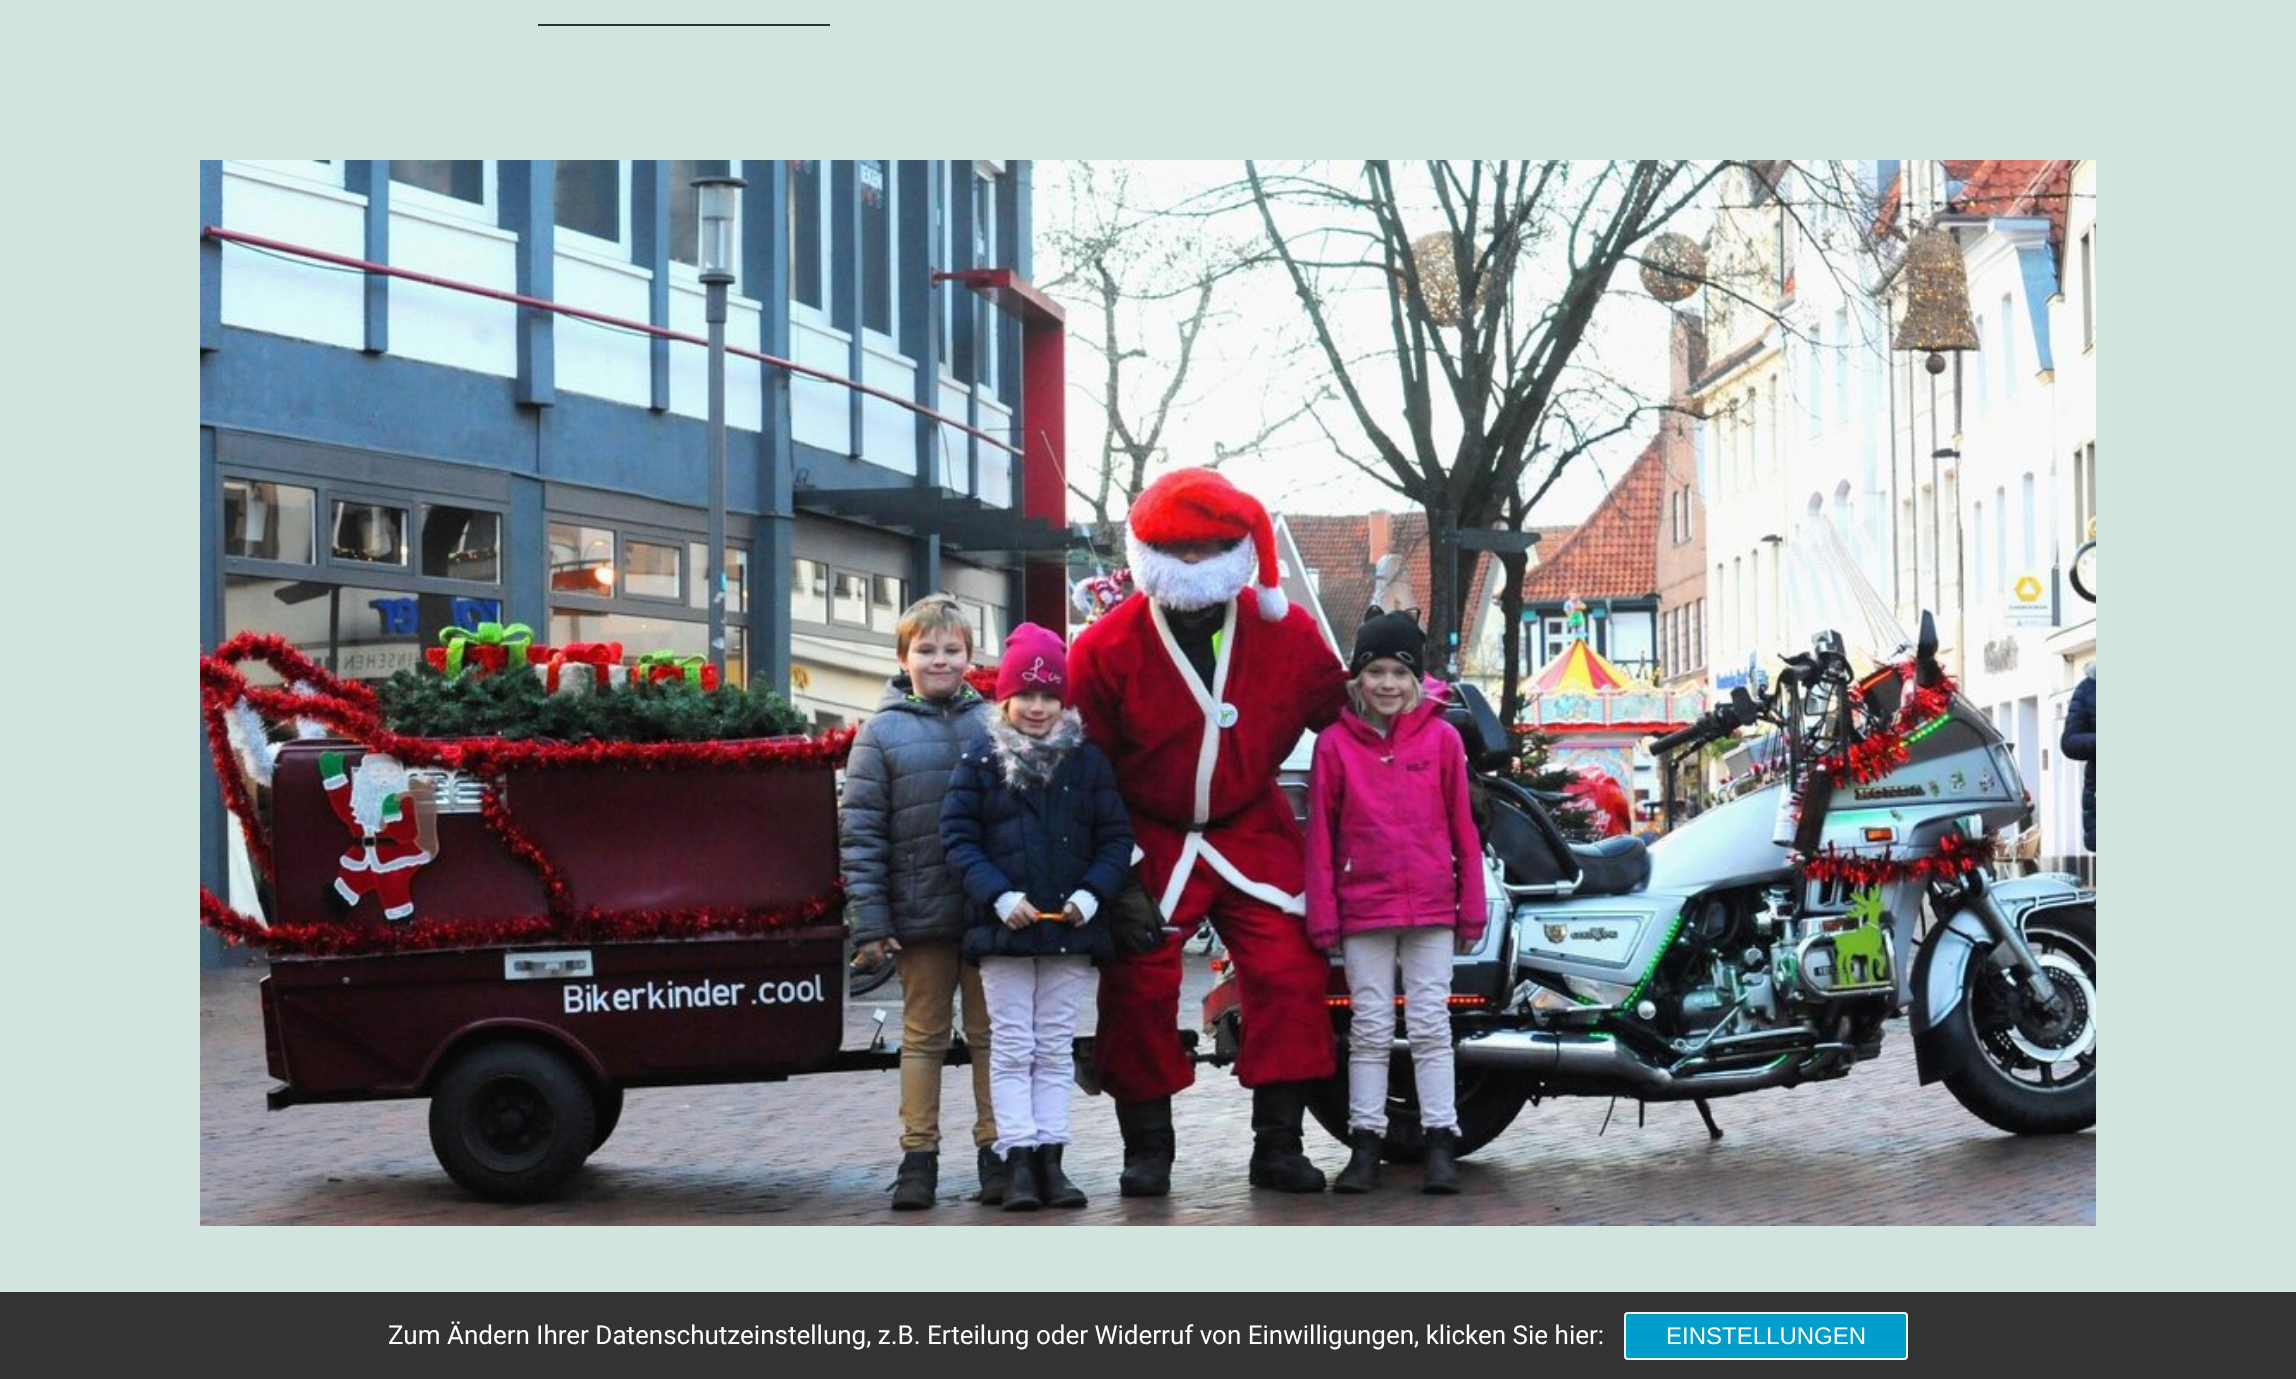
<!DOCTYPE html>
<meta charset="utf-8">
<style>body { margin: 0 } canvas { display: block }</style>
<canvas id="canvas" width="2296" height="1379"></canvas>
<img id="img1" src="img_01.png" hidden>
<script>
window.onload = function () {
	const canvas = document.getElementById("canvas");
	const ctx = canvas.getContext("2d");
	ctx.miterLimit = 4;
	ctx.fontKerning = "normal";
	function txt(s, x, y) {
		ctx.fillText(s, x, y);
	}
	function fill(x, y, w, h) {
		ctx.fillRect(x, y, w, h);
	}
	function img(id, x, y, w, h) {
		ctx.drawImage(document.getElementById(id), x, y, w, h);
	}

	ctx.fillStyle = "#D1E4DD";
	fill(0, 0, 2296, 1379);
	ctx.fillStyle = "#28303D";
	fill(538, 24, 292, 2);
	img("img1", 200, 160, 1896, 1066);
	ctx.fillStyle = "#333333";
	fill(0, 1292, 2296, 87);
	ctx.fillStyle = "#009ECB";
	ctx.beginPath();
	ctx.roundRect(1625, 1313, 282, 46, 3);
	ctx.fill();
	ctx.strokeStyle = "#F3F3F3";
	ctx.lineWidth = 2;
	ctx.stroke();
	ctx.font = "26px Roboto";
	ctx.fillStyle = "#FFFFFF";
	txt("Zum Ändern Ihrer Datenschutzeinstellung, z.B. Erteilung oder Widerruf von Einwilligungen, klicken Sie hier:", 388, 1344);
	ctx.font = "24px Liberation Sans";
	txt("EINSTELLUNGEN", 1666, 1344);
};
</script>
